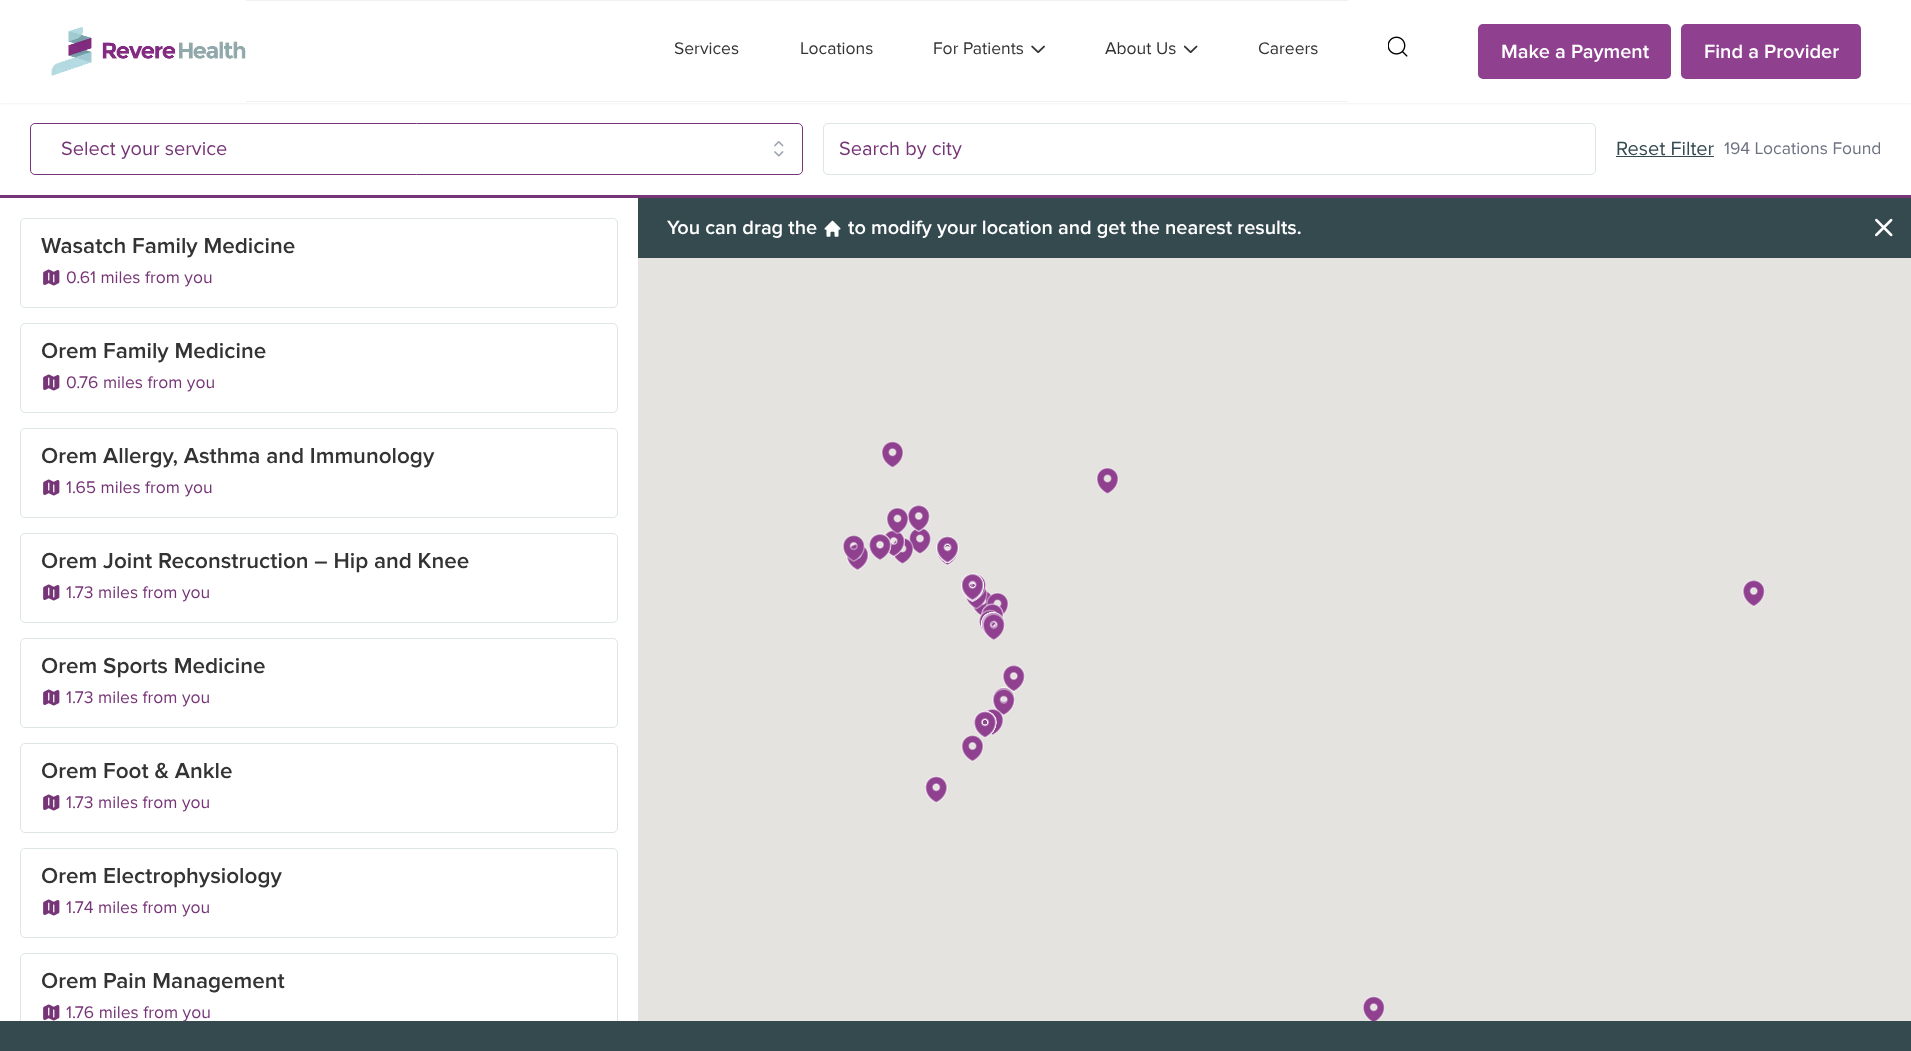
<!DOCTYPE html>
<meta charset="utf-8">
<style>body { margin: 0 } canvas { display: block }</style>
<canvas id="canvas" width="1911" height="1051"></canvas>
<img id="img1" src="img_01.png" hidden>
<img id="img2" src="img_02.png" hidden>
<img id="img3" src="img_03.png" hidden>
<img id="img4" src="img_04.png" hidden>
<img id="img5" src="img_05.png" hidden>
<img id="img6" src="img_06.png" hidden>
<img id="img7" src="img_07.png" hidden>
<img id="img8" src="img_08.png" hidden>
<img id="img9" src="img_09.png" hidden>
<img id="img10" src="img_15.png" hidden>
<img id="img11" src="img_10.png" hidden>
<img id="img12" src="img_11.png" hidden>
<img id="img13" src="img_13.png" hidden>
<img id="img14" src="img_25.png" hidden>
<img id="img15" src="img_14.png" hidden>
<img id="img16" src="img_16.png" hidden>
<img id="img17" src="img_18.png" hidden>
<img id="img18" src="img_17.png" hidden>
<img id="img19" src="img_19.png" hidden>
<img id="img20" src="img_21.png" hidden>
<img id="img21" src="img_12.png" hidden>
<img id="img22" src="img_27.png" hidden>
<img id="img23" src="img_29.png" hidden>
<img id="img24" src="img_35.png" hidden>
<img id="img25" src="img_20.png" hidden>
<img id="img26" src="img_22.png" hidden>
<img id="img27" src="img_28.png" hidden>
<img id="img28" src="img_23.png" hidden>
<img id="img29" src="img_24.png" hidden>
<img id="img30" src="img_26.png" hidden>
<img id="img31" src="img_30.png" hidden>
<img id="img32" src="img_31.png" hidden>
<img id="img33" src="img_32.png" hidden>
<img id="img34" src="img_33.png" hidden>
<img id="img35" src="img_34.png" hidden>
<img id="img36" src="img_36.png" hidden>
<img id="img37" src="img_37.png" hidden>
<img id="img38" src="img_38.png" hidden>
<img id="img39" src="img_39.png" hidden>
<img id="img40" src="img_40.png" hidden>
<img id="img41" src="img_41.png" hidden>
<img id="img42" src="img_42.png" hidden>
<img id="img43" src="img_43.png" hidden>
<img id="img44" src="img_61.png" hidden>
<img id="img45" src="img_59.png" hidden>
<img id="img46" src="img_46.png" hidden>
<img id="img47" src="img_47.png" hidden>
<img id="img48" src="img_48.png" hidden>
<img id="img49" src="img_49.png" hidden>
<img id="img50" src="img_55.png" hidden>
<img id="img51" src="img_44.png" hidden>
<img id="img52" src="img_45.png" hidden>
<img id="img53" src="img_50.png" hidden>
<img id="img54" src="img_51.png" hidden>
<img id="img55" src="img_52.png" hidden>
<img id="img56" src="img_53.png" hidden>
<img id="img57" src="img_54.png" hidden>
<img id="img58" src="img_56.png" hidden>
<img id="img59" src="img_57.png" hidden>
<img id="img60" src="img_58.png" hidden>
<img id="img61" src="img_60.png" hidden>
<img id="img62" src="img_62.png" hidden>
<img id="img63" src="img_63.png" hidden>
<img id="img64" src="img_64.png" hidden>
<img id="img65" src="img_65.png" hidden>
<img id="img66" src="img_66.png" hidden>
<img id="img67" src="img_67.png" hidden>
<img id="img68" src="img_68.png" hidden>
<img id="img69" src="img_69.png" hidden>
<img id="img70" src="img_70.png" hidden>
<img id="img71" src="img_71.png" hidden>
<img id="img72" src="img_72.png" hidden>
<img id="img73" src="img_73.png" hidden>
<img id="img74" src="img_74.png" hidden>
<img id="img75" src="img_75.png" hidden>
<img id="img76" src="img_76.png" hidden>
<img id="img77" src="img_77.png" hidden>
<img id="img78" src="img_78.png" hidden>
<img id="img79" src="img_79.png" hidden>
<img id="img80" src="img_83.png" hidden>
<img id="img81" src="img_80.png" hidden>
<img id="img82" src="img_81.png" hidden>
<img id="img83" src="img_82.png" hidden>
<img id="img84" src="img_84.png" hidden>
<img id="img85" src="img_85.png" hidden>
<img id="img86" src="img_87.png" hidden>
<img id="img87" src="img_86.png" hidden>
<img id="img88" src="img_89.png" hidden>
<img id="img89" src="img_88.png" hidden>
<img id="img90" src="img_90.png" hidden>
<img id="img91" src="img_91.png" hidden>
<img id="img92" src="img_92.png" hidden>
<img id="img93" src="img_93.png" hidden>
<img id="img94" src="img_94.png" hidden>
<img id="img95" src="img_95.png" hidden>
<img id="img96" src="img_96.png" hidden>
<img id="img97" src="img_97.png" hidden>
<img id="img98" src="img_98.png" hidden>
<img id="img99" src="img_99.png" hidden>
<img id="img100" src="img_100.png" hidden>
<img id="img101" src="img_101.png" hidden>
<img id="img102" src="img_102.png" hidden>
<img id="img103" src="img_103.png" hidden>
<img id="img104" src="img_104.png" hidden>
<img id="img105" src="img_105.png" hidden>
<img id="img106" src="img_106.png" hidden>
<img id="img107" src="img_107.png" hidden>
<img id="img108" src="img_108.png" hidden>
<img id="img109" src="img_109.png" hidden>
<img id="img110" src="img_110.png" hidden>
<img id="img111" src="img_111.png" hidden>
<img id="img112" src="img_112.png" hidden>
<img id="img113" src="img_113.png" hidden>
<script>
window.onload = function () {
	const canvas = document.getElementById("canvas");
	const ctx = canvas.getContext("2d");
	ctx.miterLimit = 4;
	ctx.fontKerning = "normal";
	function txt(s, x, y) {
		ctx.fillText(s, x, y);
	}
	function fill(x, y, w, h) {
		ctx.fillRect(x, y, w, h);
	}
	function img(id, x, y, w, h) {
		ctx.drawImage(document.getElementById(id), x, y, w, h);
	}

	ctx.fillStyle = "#FFFFFF";
	fill(0, 0, 1911, 1051);
	ctx.fillStyle = "rgba(0, 0, 0, 0.05)";
	ctx.filter = "blur(1px)";
	ctx.beginPath();
	ctx.rect(0, 1, 1911, 103);
	ctx.fill();
	ctx.filter = "none";
	ctx.fillStyle = "#FFFFFF";
	fill(0, 0, 1911, 103);
	img("img1", 51, 27, 195, 49);
	ctx.fillStyle = "#EFF2F3";
	fill(246, 0, 1102, 1);
	fill(246, 101, 1102, 1);
	img("img2", 1031, 45, 14, 9);
	img("img3", 1184, 45, 14, 9);
	img("img4", 1388, 36, 20, 21);
	ctx.fillStyle = "#8F408F";
	ctx.beginPath();
	ctx.roundRect(1479.5, 25.5, 190, 52, 3.5);
	ctx.fill();
	ctx.strokeStyle = "#8F408F";
	ctx.lineWidth = 3;
	ctx.stroke();
	ctx.beginPath();
	ctx.roundRect(1682.5, 25.5, 177, 52, 3.5);
	ctx.fill();
	ctx.stroke();
	ctx.fillStyle = "#763576";
	fill(0, 195, 1911, 3);
	ctx.beginPath();
	ctx.roundRect(30.5, 123.5, 772, 51, 4.5);
	ctx.strokeStyle = "#763576";
	ctx.lineWidth = 1;
	ctx.stroke();
	img("img5", 774, 141, 10, 16);
	ctx.beginPath();
	ctx.roundRect(823.5, 123.5, 772, 51, 4.5);
	ctx.strokeStyle = "#DEE5E7";
	ctx.stroke();
	ctx.fillStyle = "#344A4F";
	fill(1616, 156, 98, 1);
	fill(638, 198, 1273, 60);
	img("img6", 824, 220, 17, 17);
	img("img7", 1875, 218, 18, 19);
	ctx.fillStyle = "#E5E3DF";
	fill(638, 258, 1273, 763);
	img("img8", 881, 441, 23, 27);
	img("img9", 1096, 467, 23, 27);
	img("img10", 909, 527, 22, 27);
	img("img11", 907, 505, 23, 27);
	img("img12", 907, 505, 23, 27);
	img("img13", 908, 505, 22, 27);
	img("img14", 892, 537, 22, 27);
	img("img15", 882, 530, 23, 27);
	img("img16", 882, 530, 23, 27);
	img("img17", 883, 530, 22, 27);
	img("img18", 869, 533, 23, 28);
	img("img19", 869, 533, 23, 27);
	img("img20", 869, 534, 23, 25);
	img("img21", 886, 507, 23, 28);
	img("img22", 846, 543, 23, 28);
	img("img23", 846, 543, 23, 28);
	img("img24", 846, 552, 23, 18);
	img("img25", 842, 535, 23, 27);
	img("img26", 885, 535, 7, 18);
	img("img27", 936, 542, 23, 24);
	img("img28", 936, 536, 23, 27);
	img("img29", 936, 536, 23, 27);
	img("img30", 936, 536, 23, 27);
	img("img31", 937, 544, 21, 19);
	img("img32", 937, 544, 21, 19);
	img("img33", 937, 544, 21, 19);
	img("img34", 938, 544, 19, 19);
	img("img35", 938, 544, 19, 19);
	img("img36", 940, 544, 17, 19);
	img("img37", 940, 558, 15, 5);
	img("img38", 940, 558, 15, 5);
	img("img39", 940, 558, 15, 5);
	img("img40", 941, 559, 13, 4);
	img("img41", 945, 562, 5, 1);
	img("img42", 945, 562, 5, 1);
	img("img43", 945, 562, 5, 1);
	img("img44", 971, 590, 21, 26);
	img("img45", 965, 582, 23, 28);
	img("img46", 968, 573, 18, 28);
	img("img47", 961, 574, 23, 28);
	img("img48", 961, 574, 23, 28);
	img("img49", 961, 574, 23, 28);
	img("img50", 966, 575, 18, 27);
	img("img51", 961, 573, 23, 28);
	img("img52", 961, 573, 23, 28);
	img("img53", 962, 574, 22, 27);
	img("img54", 962, 574, 22, 27);
	img("img55", 962, 574, 22, 27);
	img("img56", 964, 575, 20, 26);
	img("img57", 965, 575, 19, 26);
	img("img58", 967, 576, 17, 25);
	img("img59", 970, 576, 14, 25);
	img("img60", 1742, 580, 23, 27);
	img("img61", 1742, 580, 23, 27);
	img("img62", 986, 592, 23, 25);
	img("img63", 981, 603, 23, 16);
	img("img64", 981, 603, 23, 22);
	img("img65", 979, 609, 21, 28);
	img("img66", 981, 612, 23, 27);
	img("img67", 981, 612, 23, 27);
	img("img68", 981, 612, 23, 20);
	img("img69", 981, 612, 22, 20);
	img("img70", 981, 612, 22, 18);
	img("img71", 981, 612, 22, 18);
	img("img72", 981, 612, 21, 18);
	img("img73", 981, 612, 21, 16);
	img("img74", 981, 612, 21, 16);
	img("img75", 981, 612, 21, 16);
	img("img76", 981, 612, 21, 16);
	img("img77", 981, 612, 21, 14);
	img("img78", 981, 612, 21, 14);
	img("img79", 981, 612, 21, 14);
	img("img80", 983, 614, 19, 12);
	img("img81", 982, 612, 23, 27);
	img("img82", 982, 612, 23, 27);
	img("img83", 982, 613, 23, 28);
	img("img60", 1002, 665, 23, 27);
	img("img61", 1002, 665, 23, 27);
	img("img84", 992, 687, 23, 27);
	img("img85", 992, 687, 23, 27);
	img("img86", 992, 688, 23, 28);
	img("img87", 993, 687, 22, 28);
	img("img88", 993, 689, 22, 26);
	img("img89", 993, 688, 22, 28);
	img("img90", 981, 708, 23, 28);
	img("img91", 974, 711, 23, 27);
	img("img92", 974, 711, 23, 27);
	img("img93", 974, 711, 23, 24);
	img("img94", 982, 711, 15, 23);
	img("img95", 982, 711, 15, 23);
	img("img96", 982, 711, 15, 23);
	img("img97", 982, 711, 15, 23);
	img("img98", 982, 711, 15, 23);
	img("img99", 983, 711, 14, 23);
	img("img100", 983, 711, 14, 22);
	img("img101", 983, 711, 14, 22);
	img("img102", 983, 711, 14, 21);
	img("img103", 983, 711, 14, 21);
	img("img104", 983, 713, 14, 19);
	img("img105", 983, 713, 14, 19);
	img("img106", 983, 713, 14, 12);
	img("img107", 983, 713, 14, 11);
	ctx.fillStyle = "#D9BFD9";
	fill(992, 713, 1, 1);
	img("img108", 961, 735, 23, 27);
	img("img109", 925, 776, 23, 27);
	img("img110", 925, 776, 23, 27);
	img("img111", 925, 776, 23, 27);
	img("img112", 1362, 996, 23, 25);
	ctx.beginPath();
	ctx.roundRect(20.5, 218.5, 597, 89, 4.5);
	ctx.stroke();
	img("img113", 43, 269, 17, 17);
	ctx.beginPath();
	ctx.roundRect(20.5, 323.5, 597, 89, 4.5);
	ctx.stroke();
	img("img113", 43, 374, 17, 17);
	ctx.beginPath();
	ctx.roundRect(20.5, 428.5, 597, 89, 4.5);
	ctx.stroke();
	img("img113", 43, 479, 17, 17);
	ctx.beginPath();
	ctx.roundRect(20.5, 533.5, 597, 89, 4.5);
	ctx.stroke();
	img("img113", 43, 584, 17, 17);
	ctx.beginPath();
	ctx.roundRect(20.5, 638.5, 597, 89, 4.5);
	ctx.stroke();
	img("img113", 43, 689, 17, 17);
	ctx.beginPath();
	ctx.roundRect(20.5, 743.5, 597, 89, 4.5);
	ctx.stroke();
	img("img113", 43, 794, 17, 17);
	ctx.beginPath();
	ctx.roundRect(20.5, 848.5, 597, 89, 4.5);
	ctx.stroke();
	img("img113", 43, 899, 17, 17);
	ctx.fillStyle = "#344A4F";
	fill(0, 1021, 1911, 30);
	ctx.save();
	ctx.beginPath();
	ctx.rect(0, 198, 638, 823);
	ctx.clip();
	ctx.beginPath();
	ctx.roundRect(20.5, 953.5, 597, 89, 4.5);
	ctx.stroke();
	ctx.restore();
	img("img113", 43, 1004, 17, 17);
	ctx.font = "17.5px Proxima Nova";
	ctx.fillStyle = "#333333";
	txt("Services", 674, 54);
	txt("Locations", 800, 54);
	txt("For Patients", 933, 54);
	txt("About Us", 1105, 54);
	txt("Careers", 1258, 54);
	ctx.font = "600 20px Proxima Nova";
	ctx.fillStyle = "#FFFFFF";
	txt("Make a Payment", 1501, 58);
	txt("Find a Provider", 1704, 58);
	ctx.font = "20px Proxima Nova";
	ctx.fillStyle = "#763576";
	txt("Select your service", 61, 155);
	txt("Search by city", 839, 155);
	ctx.fillStyle = "#344A4F";
	txt("Reset Filter", 1616, 155);
	ctx.font = "17.5px Proxima Nova";
	ctx.fillStyle = "#6B7280";
	txt("194 Locations Found", 1724, 154);
	ctx.font = "600 20px Proxima Nova";
	ctx.fillStyle = "#FFFFFF";
	txt("You can drag the", 667, 234);
	txt("to modify your location and get the nearest results.", 848, 234);
	ctx.font = "600 22.5px Proxima Nova";
	ctx.fillStyle = "#333333";
	txt("Wasatch Family Medicine", 41, 253);
	ctx.font = "17.5px Proxima Nova";
	ctx.fillStyle = "#763576";
	txt("0.61 miles from you", 66, 283);
	ctx.font = "600 22.5px Proxima Nova";
	ctx.fillStyle = "#333333";
	txt("Orem Family Medicine", 41, 358);
	ctx.font = "17.5px Proxima Nova";
	ctx.fillStyle = "#763576";
	txt("0.76 miles from you", 66, 388);
	ctx.font = "600 22.5px Proxima Nova";
	ctx.fillStyle = "#333333";
	txt("Orem Allergy, Asthma and Immunology", 41, 463);
	ctx.font = "17.5px Proxima Nova";
	ctx.fillStyle = "#763576";
	txt("1.65 miles from you", 66, 493);
	ctx.font = "600 22.5px Proxima Nova";
	ctx.fillStyle = "#333333";
	txt("Orem Joint Reconstruction – Hip and Knee", 41, 568);
	ctx.font = "17.5px Proxima Nova";
	ctx.fillStyle = "#763576";
	txt("1.73 miles from you", 66, 598);
	ctx.font = "600 22.5px Proxima Nova";
	ctx.fillStyle = "#333333";
	txt("Orem Sports Medicine", 41, 673);
	ctx.font = "17.5px Proxima Nova";
	ctx.fillStyle = "#763576";
	txt("1.73 miles from you", 66, 703);
	ctx.font = "600 22.5px Proxima Nova";
	ctx.fillStyle = "#333333";
	txt("Orem Foot & Ankle", 41, 778);
	ctx.font = "17.5px Proxima Nova";
	ctx.fillStyle = "#763576";
	txt("1.73 miles from you", 66, 808);
	ctx.font = "600 22.5px Proxima Nova";
	ctx.fillStyle = "#333333";
	txt("Orem Electrophysiology", 41, 883);
	ctx.font = "17.5px Proxima Nova";
	ctx.fillStyle = "#763576";
	txt("1.74 miles from you", 66, 913);
	ctx.font = "600 22.5px Proxima Nova";
	ctx.fillStyle = "#333333";
	txt("Orem Pain Management", 41, 988);
	ctx.font = "17.5px Proxima Nova";
	ctx.fillStyle = "#763576";
	txt("1.76 miles from you", 66, 1018);
};
</script>
